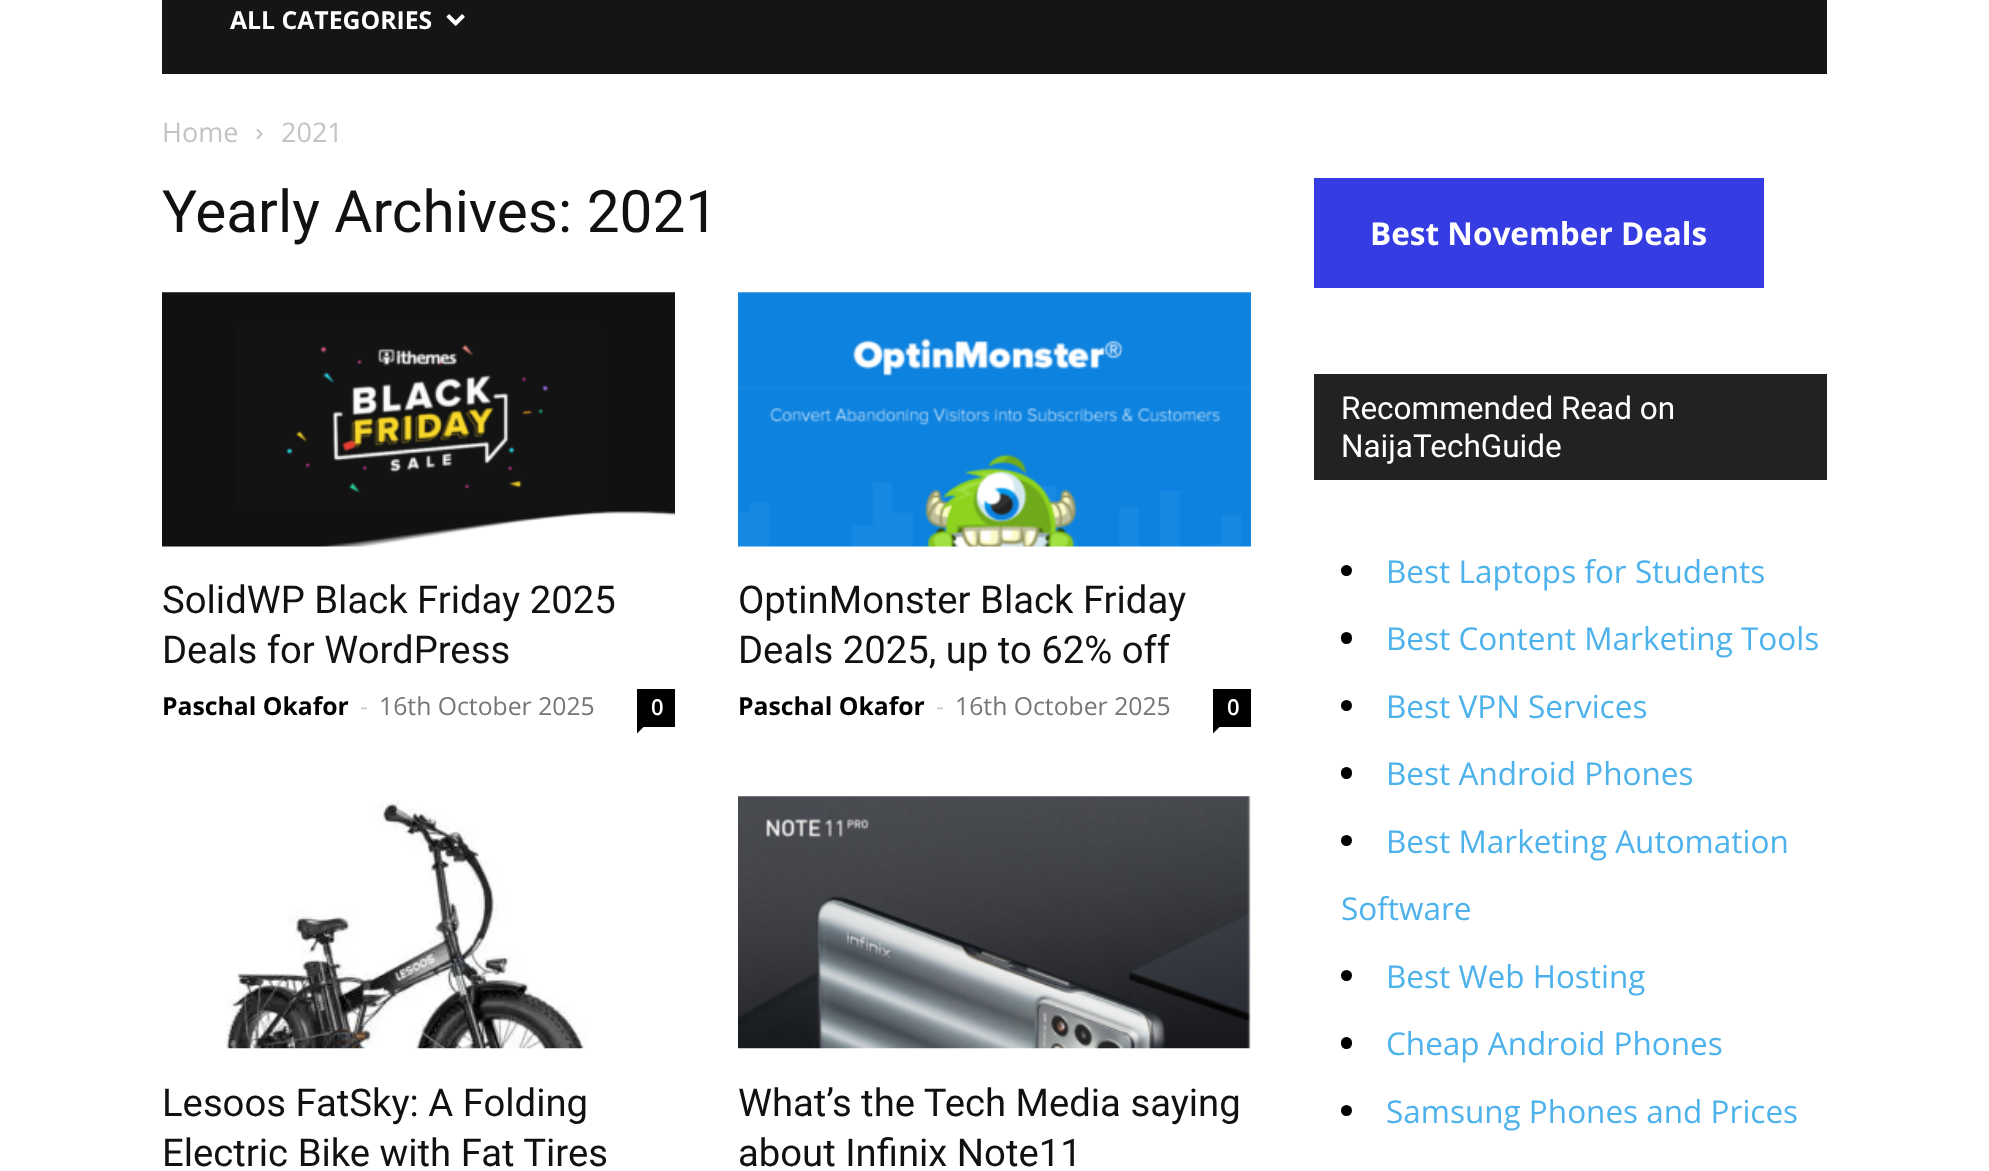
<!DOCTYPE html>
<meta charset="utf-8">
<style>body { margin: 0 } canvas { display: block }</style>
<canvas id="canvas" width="1989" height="1171"></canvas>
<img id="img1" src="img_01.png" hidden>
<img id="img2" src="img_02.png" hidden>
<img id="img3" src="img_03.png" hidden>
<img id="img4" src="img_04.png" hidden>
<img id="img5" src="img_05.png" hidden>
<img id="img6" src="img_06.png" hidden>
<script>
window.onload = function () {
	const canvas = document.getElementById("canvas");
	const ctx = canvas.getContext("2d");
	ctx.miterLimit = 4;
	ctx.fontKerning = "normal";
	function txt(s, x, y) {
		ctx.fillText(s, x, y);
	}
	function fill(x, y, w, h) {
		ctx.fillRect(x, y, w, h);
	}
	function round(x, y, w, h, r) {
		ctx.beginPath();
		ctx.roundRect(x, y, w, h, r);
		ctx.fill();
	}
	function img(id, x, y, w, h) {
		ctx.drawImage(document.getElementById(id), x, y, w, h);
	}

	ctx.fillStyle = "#FFFFFF";
	fill(0, 0, 1989, 1171);
	ctx.fillStyle = "#151515";
	fill(162, 0, 1665, 74);
	img("img1", 446, 14, 19, 12);
	img("img2", 256, 128, 7, 12);
	img("img3", 162, 292, 513, 255);
	ctx.fillStyle = "#000000";
	fill(637, 689, 38, 38);
	ctx.beginPath();
	ctx.moveTo(637, 727);
	ctx.lineTo(643.5, 727);
	ctx.lineTo(637, 733.5);
	ctx.closePath();
	ctx.fill();
	img("img4", 738, 292, 513, 255);
	fill(1213, 689, 38, 38);
	ctx.beginPath();
	ctx.moveTo(1213, 727);
	ctx.lineTo(1219.5, 727);
	ctx.lineTo(1213, 733.5);
	ctx.closePath();
	ctx.fill();
	img("img5", 225, 800, 362, 249);
	img("img6", 738, 796, 513, 253);
	ctx.fillStyle = "#343CE2";
	fill(1314, 178, 450, 110);
	ctx.fillStyle = "#222222";
	fill(1314, 374, 513, 106);
	ctx.fillStyle = "#000000";
	ctx.beginPath();
	ctx.arc(1346.5, 570.5, 5.5, 0, Math.PI * 2);
	ctx.fill();
	round(1341, 632, 11, 12, 5.5);
	ctx.beginPath();
	ctx.arc(1346.5, 705.5, 5.5, 0, Math.PI * 2);
	ctx.fill();
	round(1341, 767, 11, 12, 5.5);
	ctx.beginPath();
	ctx.arc(1346.5, 840.5, 5.5, 0, Math.PI * 2);
	ctx.fill();
	ctx.beginPath();
	ctx.arc(1346.5, 975.5, 5.5, 0, Math.PI * 2);
	ctx.fill();
	round(1341, 1037, 11, 12, 5.5);
	ctx.beginPath();
	ctx.arc(1346.5, 1110.5, 5.5, 0, Math.PI * 2);
	ctx.fill();
	ctx.font = "bold 24.75px Open Sans";
	ctx.fillStyle = "#FFFFFF";
	txt("ALL CATEGORIES", 230, 29);
	ctx.font = "27px Open Sans";
	ctx.fillStyle = "#C3C3C3";
	txt("Home", 162, 142);
	txt("2021", 281, 142);
	ctx.font = "58.5px Roboto";
	ctx.fillStyle = "#111111";
	txt("Yearly Archives: 2021", 162, 232);
	ctx.font = "38.25px Roboto";
	txt("SolidWP Black Friday 2025", 162, 613);
	txt("Deals for WordPress", 162, 663);
	ctx.font = "bold 24.75px Open Sans";
	ctx.fillStyle = "#000000";
	txt("Paschal Okafor", 162, 715);
	ctx.font = "24.75px Open Sans";
	ctx.fillStyle = "#CCCCCC";
	txt("-", 360, 715);
	ctx.fillStyle = "#767676";
	txt("16th October 2025", 379, 715);
	ctx.font = "600 22px Open Sans";
	ctx.fillStyle = "#FFFFFF";
	txt("0", 651, 715);
	ctx.font = "38.25px Roboto";
	ctx.fillStyle = "#111111";
	txt("OptinMonster Black Friday", 738, 613);
	txt("Deals 2025, up to 62% off", 738, 663);
	ctx.font = "bold 24.75px Open Sans";
	ctx.fillStyle = "#000000";
	txt("Paschal Okafor", 738, 715);
	ctx.font = "24.75px Open Sans";
	ctx.fillStyle = "#CCCCCC";
	txt("-", 936, 715);
	ctx.fillStyle = "#767676";
	txt("16th October 2025", 955, 715);
	ctx.font = "600 22px Open Sans";
	ctx.fillStyle = "#FFFFFF";
	txt("0", 1227, 715);
	ctx.font = "38.25px Roboto";
	ctx.fillStyle = "#111111";
	txt("Lesoos FatSky: A Folding", 162, 1116);
	txt("Electric Bike with Fat Tires", 162, 1166);
	txt("What’s the Tech Media saying", 738, 1116);
	txt("about Infinix Note11", 738, 1166);
	ctx.font = "bold 31.5px Open Sans";
	ctx.fillStyle = "#FFFFFF";
	txt("Best November Deals", 1370, 245);
	ctx.font = "31.5px Roboto";
	txt("Recommended Read on", 1341, 419);
	txt("NaijaTechGuide", 1341, 457);
	ctx.font = "31.5px Open Sans";
	ctx.fillStyle = "#4DB2EC";
	txt("Best Laptops for Students", 1386, 583);
	txt("Best Content Marketing Tools", 1386, 650);
	txt("Best VPN Services", 1386, 718);
	txt("Best Android Phones", 1386, 785);
	txt("Best Marketing Automation", 1386, 853);
	txt("Software", 1341, 920);
	txt("Best Web Hosting", 1386, 988);
	txt("Cheap Android Phones", 1386, 1055);
	txt("Samsung Phones and Prices", 1386, 1123);
};
</script>
